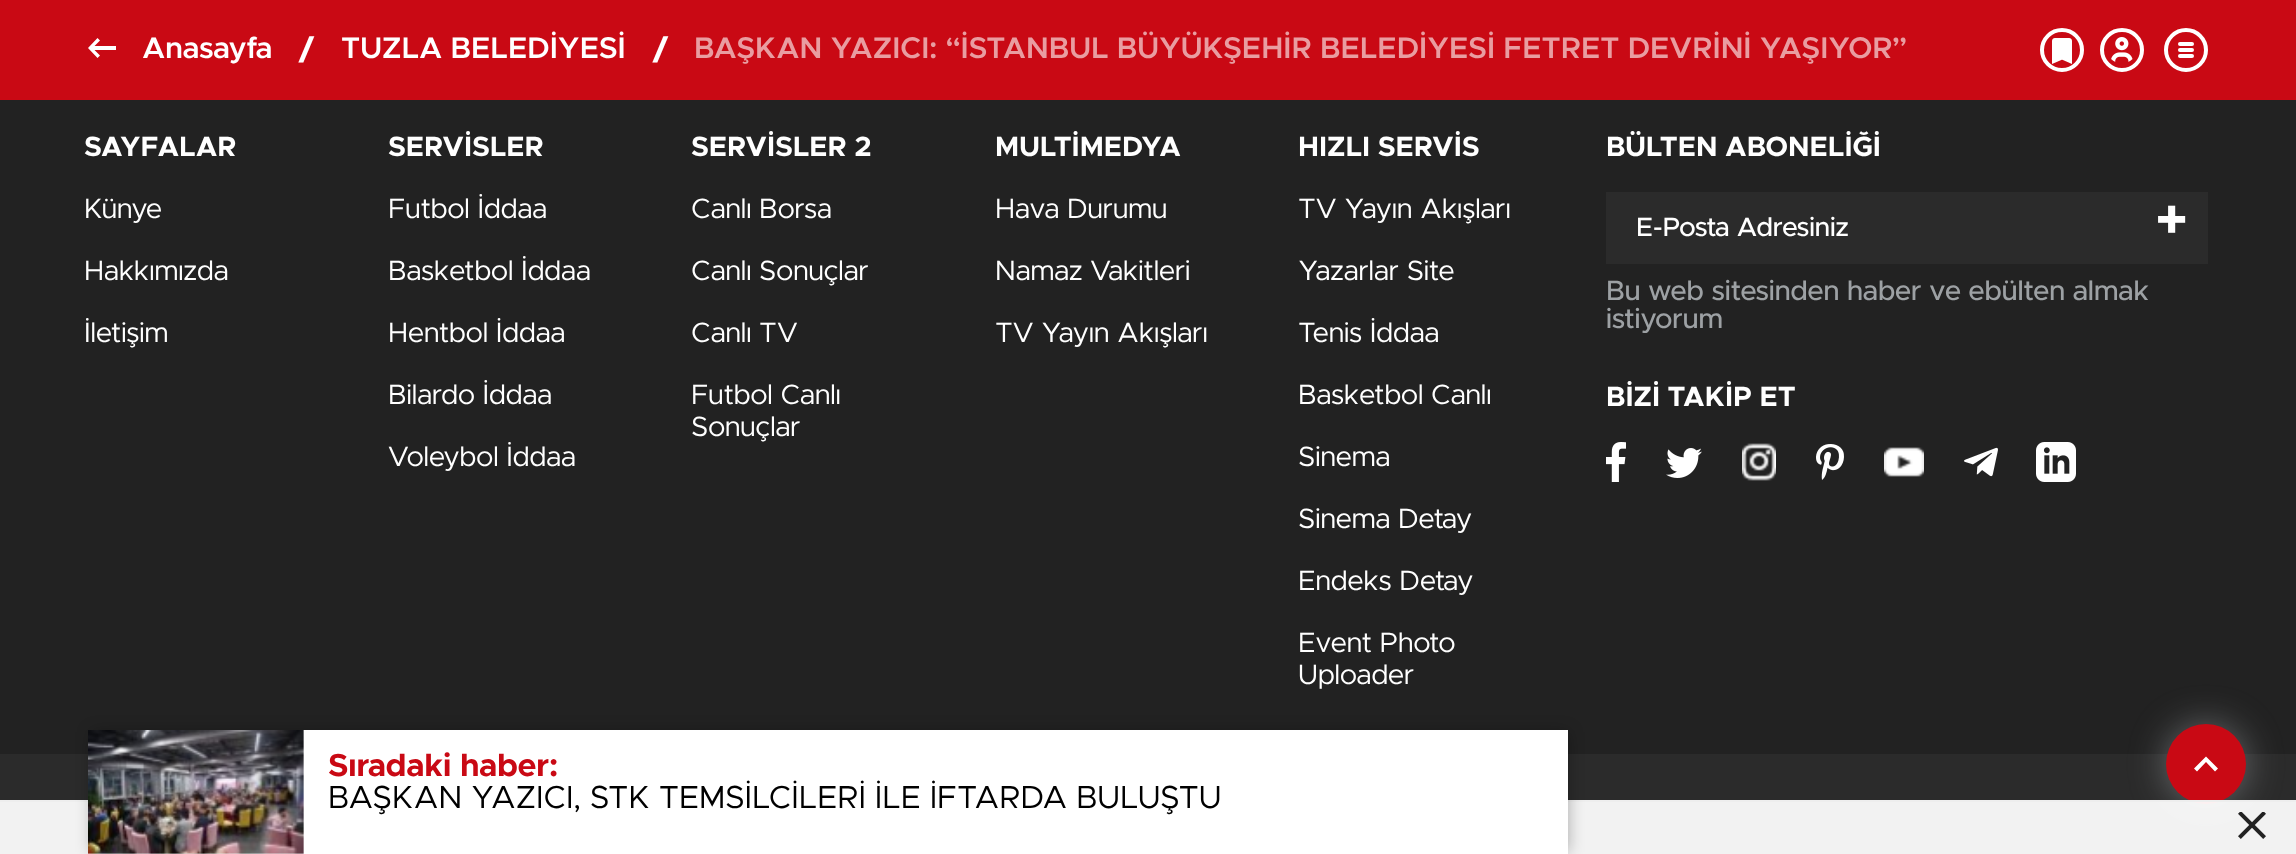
<!DOCTYPE html>
<meta charset="utf-8">
<style>body { margin: 0 } canvas { display: block }</style>
<canvas id="canvas" width="2296" height="854"></canvas>
<img id="img1" src="img_01.png" hidden>
<img id="img2" src="img_02.png" hidden>
<img id="img3" src="img_03.png" hidden>
<img id="img4" src="img_04.png" hidden>
<img id="img5" src="img_05.png" hidden>
<img id="img6" src="img_06.png" hidden>
<img id="img7" src="img_07.png" hidden>
<img id="img8" src="img_08.png" hidden>
<img id="img9" src="img_09.png" hidden>
<img id="img10" src="img_10.png" hidden>
<img id="img11" src="img_11.png" hidden>
<script>
window.onload = function () {
	const canvas = document.getElementById("canvas");
	const ctx = canvas.getContext("2d");
	ctx.miterLimit = 4;
	ctx.fontKerning = "normal";
	function txt(s, x, y) {
		ctx.fillText(s, x, y);
	}
	function fill(x, y, w, h) {
		ctx.fillRect(x, y, w, h);
	}
	function round(x, y, w, h, r) {
		ctx.beginPath();
		ctx.roundRect(x, y, w, h, r);
		ctx.fill();
	}
	function img(id, x, y, w, h) {
		ctx.drawImage(document.getElementById(id), x, y, w, h);
	}

	ctx.fillStyle = "#222222";
	fill(0, 0, 2296, 854);
	ctx.fillStyle = "#C90914";
	fill(0, 0, 2296, 100);
	ctx.fillStyle = "#FFFFFF";
	ctx.beginPath();
	ctx.moveTo(116, 50);
	ctx.lineTo(94.5, 50);
	ctx.lineTo(100, 55.5);
	ctx.lineTo(97.5, 58);
	ctx.lineTo(88, 48);
	ctx.lineTo(97.5, 38);
	ctx.lineTo(100, 40.5);
	ctx.lineTo(94.5, 46);
	ctx.lineTo(116, 46);
	ctx.closePath();
	ctx.fill();
	ctx.beginPath();
	ctx.arc(2062, 50, 20, 0, Math.PI * 2);
	ctx.strokeStyle = "#FFFFFF";
	ctx.lineWidth = 4;
	ctx.stroke();
	img("img1", 2052, 38, 20, 26);
	ctx.beginPath();
	ctx.arc(2122, 50, 20, 0, Math.PI * 2);
	ctx.stroke();
	img("img2", 2111, 37, 22, 25);
	ctx.beginPath();
	ctx.arc(2186, 50, 20, 0, Math.PI * 2);
	ctx.stroke();
	round(2178, 42, 16, 4, 2);
	round(2178, 48, 16, 4, 2);
	round(2178, 54, 16, 4, 2);
	ctx.fillStyle = "#2B2B2B";
	fill(0, 754, 2296, 100);
	ctx.fillStyle = "rgba(157, 161, 164, 0.54)";
	ctx.filter = "blur(18px)";
	ctx.beginPath();
	ctx.roundRect(2166, 724, 80, 80, 40);
	ctx.fill();
	ctx.filter = "none";
	ctx.fillStyle = "#C90914";
	ctx.beginPath();
	ctx.arc(2206, 764, 40, 0, Math.PI * 2);
	ctx.fill();
	ctx.fillStyle = "rgba(255, 255, 255, 0.94)";
	fill(0, 802, 2296, 52);
	ctx.fillStyle = "#EEEEEE";
	fill(0, 800, 2296, 2);
	ctx.fillStyle = "rgba(0, 0, 0, 0.3)";
	ctx.filter = "blur(8px)";
	ctx.beginPath();
	ctx.rect(92, 732, 1476, 120);
	ctx.fill();
	ctx.filter = "none";
	ctx.fillStyle = "#FFFFFF";
	fill(88, 730, 1480, 124);
	img("img3", 88, 730, 216, 124);
	ctx.fillStyle = "#2B2B2B";
	fill(1606, 192, 602, 72);
	img("img4", 1606, 442, 20, 40);
	img("img5", 1666, 448, 36, 30);
	img("img6", 1742, 443, 34, 38);
	img("img7", 1816, 444, 28, 36);
	img("img8", 1884, 447, 40, 30);
	img("img9", 1964, 447, 34, 30);
	img("img10", 2036, 442, 40, 40);
	ctx.fillStyle = "#FFFFFF";
	ctx.beginPath();
	ctx.moveTo(2206, 756.5);
	ctx.lineTo(2194, 768.5);
	ctx.lineTo(2197, 771.5);
	ctx.lineTo(2206, 762);
	ctx.lineTo(2215, 771.5);
	ctx.lineTo(2218, 768.5);
	ctx.closePath();
	ctx.fill();
	img("img11", 2238, 812, 28, 27);
	ctx.font = "600 30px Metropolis";
	txt("Anasayfa", 142, 58);
	ctx.font = "bold 32px Metropolis";
	txt("/", 298, 60);
	ctx.font = "600 30px Metropolis";
	txt("TUZLA BELEDİYESİ", 341, 58);
	ctx.font = "bold 32px Metropolis";
	txt("/", 652, 60);
	ctx.font = "600 30px Metropolis";
	ctx.fillStyle = "#E99DA1";
	txt("BAŞKAN YAZICI: “İSTANBUL BÜYÜKŞEHİR BELEDİYESİ FETRET DEVRİNİ YAŞIYOR”", 694, 58);
	ctx.font = "bold 32px Metropolis";
	ctx.fillStyle = "#C90914";
	txt("Sıradaki haber:", 328, 776);
	ctx.font = "32px Metropolis";
	ctx.fillStyle = "#000000";
	txt("BAŞKAN YAZICI, STK TEMSİLCİLERİ İLE İFTARDA BULUŞTU", 328, 808);
	ctx.font = "bold 28px Metropolis";
	ctx.fillStyle = "#FFFFFF";
	txt("SAYFALAR", 84, 156);
	ctx.font = "28px Metropolis";
	txt("Künye", 84, 218);
	txt("Hakkımızda", 84, 280);
	txt("İletişim", 84, 342);
	ctx.font = "bold 28px Metropolis";
	txt("SERVİSLER", 388, 156);
	ctx.font = "28px Metropolis";
	txt("Futbol İddaa", 388, 218);
	txt("Basketbol İddaa", 388, 280);
	txt("Hentbol İddaa", 388, 342);
	txt("Bilardo İddaa", 388, 404);
	txt("Voleybol İddaa", 388, 466);
	ctx.font = "bold 28px Metropolis";
	txt("SERVİSLER 2", 691, 156);
	ctx.font = "28px Metropolis";
	txt("Canlı Borsa", 691, 218);
	txt("Canlı Sonuçlar", 691, 280);
	txt("Canlı TV", 691, 342);
	txt("Futbol Canlı", 691, 404);
	txt("Sonuçlar", 691, 436);
	ctx.font = "bold 28px Metropolis";
	txt("MULTİMEDYA", 995, 156);
	ctx.font = "28px Metropolis";
	txt("Hava Durumu", 995, 218);
	txt("Namaz Vakitleri", 995, 280);
	txt("TV Yayın Akışları", 995, 342);
	ctx.font = "bold 28px Metropolis";
	txt("HIZLI SERVİS", 1298, 156);
	ctx.font = "28px Metropolis";
	txt("TV Yayın Akışları", 1298, 218);
	txt("Yazarlar Site", 1298, 280);
	txt("Tenis İddaa", 1298, 342);
	txt("Basketbol Canlı", 1298, 404);
	txt("Sinema", 1298, 466);
	txt("Sinema Detay", 1298, 528);
	txt("Endeks Detay", 1298, 590);
	txt("Event Photo", 1298, 652);
	txt("Uploader", 1298, 684);
	ctx.font = "bold 28px Metropolis";
	txt("BÜLTEN ABONELİĞİ", 1606, 156);
	ctx.font = "500 26.75px Metropolis";
	txt("E-Posta Adresiniz", 1636, 236);
	ctx.font = "bold 56px Metropolis";
	txt("+", 2155, 238);
	ctx.font = "500 28px Metropolis";
	ctx.fillStyle = "#9DA1A4";
	txt("Bu web sitesinden haber ve ebülten almak", 1606, 300);
	txt("istiyorum", 1606, 328);
	ctx.font = "bold 28px Metropolis";
	ctx.fillStyle = "#FFFFFF";
	txt("BİZİ TAKİP ET", 1606, 406);
};
</script>
